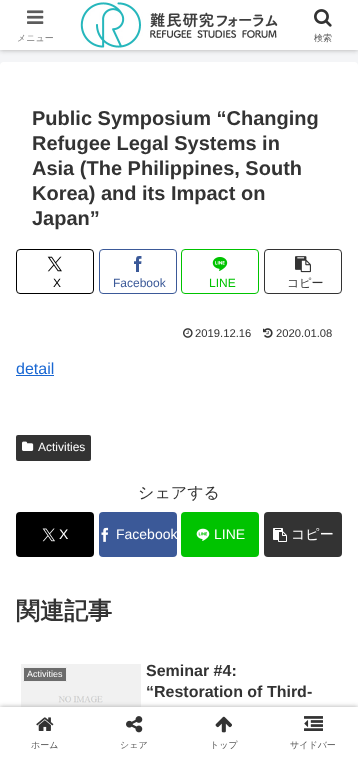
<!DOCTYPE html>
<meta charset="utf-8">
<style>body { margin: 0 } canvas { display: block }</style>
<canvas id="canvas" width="358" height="757"></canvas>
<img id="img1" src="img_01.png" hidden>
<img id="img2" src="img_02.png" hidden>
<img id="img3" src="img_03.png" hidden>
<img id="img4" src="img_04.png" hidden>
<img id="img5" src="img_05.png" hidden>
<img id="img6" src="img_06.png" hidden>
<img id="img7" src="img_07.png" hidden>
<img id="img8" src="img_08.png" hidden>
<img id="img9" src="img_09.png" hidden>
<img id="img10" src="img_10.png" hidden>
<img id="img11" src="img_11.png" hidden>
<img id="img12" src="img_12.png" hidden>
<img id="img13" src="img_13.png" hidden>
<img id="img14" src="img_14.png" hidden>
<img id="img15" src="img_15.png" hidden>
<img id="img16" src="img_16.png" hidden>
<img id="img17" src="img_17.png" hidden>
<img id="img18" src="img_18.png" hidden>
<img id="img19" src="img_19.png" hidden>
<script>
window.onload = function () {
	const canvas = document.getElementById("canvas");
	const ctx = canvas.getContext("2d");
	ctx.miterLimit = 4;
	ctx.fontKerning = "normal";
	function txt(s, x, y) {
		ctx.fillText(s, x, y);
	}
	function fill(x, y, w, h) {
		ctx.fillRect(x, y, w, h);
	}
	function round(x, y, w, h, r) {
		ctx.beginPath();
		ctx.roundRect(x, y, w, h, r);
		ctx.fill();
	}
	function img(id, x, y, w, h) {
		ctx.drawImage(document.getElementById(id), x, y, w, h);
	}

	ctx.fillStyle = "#F4F5F7";
	fill(0, 0, 358, 757);
	ctx.fillStyle = "#A9A9A9";
	ctx.filter = "blur(2.5px)";
	ctx.beginPath();
	ctx.rect(0, 0, 358, 50);
	ctx.fill();
	ctx.filter = "none";
	ctx.fillStyle = "#FFFFFF";
	fill(0, 0, 358, 50);
	img("img1", 27, 10, 17, 14);
	img("img2", 80, 2, 198, 46);
	img("img3", 314, 9, 18, 18);
	round(0, 62, 358, 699, 4);
	ctx.beginPath();
	ctx.roundRect(16.5, 249.5, 77, 44, 3.5);
	ctx.strokeStyle = "#000000";
	ctx.stroke();
	img("img4", 47, 256, 15, 16);
	ctx.beginPath();
	ctx.roundRect(99.5, 249.5, 77, 44, 3.5);
	ctx.strokeStyle = "#3B5998";
	ctx.stroke();
	img("img5", 134, 256, 8, 16);
	ctx.beginPath();
	ctx.roundRect(181.5, 249.5, 77, 44, 3.5);
	ctx.strokeStyle = "#00C300";
	ctx.stroke();
	img("img6", 212, 257, 16, 14);
	ctx.beginPath();
	ctx.roundRect(264.5, 249.5, 77, 44, 3.5);
	ctx.strokeStyle = "#333333";
	ctx.stroke();
	img("img7", 295, 256, 16, 17);
	img("img8", 183, 328, 10, 10);
	img("img9", 263, 328, 10, 10);
	ctx.fillStyle = "#1967D2";
	fill(16, 375, 38, 1);
	ctx.fillStyle = "#333333";
	round(16, 435, 75, 26, 2);
	img("img10", 22, 441, 12, 10);
	ctx.fillStyle = "#000000";
	round(16, 512, 78, 45, 4);
	img("img11", 42, 528, 13, 14);
	ctx.fillStyle = "#3B5998";
	round(99, 512, 78, 45, 4);
	img("img12", 101, 527, 8, 15);
	ctx.fillStyle = "#00C300";
	round(181, 512, 78, 45, 4);
	img("img13", 196, 528, 14, 13);
	ctx.fillStyle = "#333333";
	round(264, 512, 78, 45, 4);
	img("img14", 273, 528, 14, 14);
	img("img15", 21, 664, 120, 43);
	ctx.fillStyle = "#6C6C6C";
	ctx.beginPath();
	ctx.rect(23.5, 667.5, 43, 14);
	ctx.fill();
	ctx.strokeStyle = "#EEEEEE";
	ctx.stroke();
	ctx.fillStyle = "#A9A9A9";
	ctx.filter = "blur(2.5px)";
	ctx.beginPath();
	ctx.rect(0, 707, 358, 50);
	ctx.fill();
	ctx.filter = "none";
	ctx.fillStyle = "#FFFFFF";
	fill(0, 707, 358, 50);
	img("img16", 36, 717, 18, 14);
	img("img17", 126, 716, 17, 17);
	img("img18", 215, 716, 17, 17);
	img("img19", 304, 716, 19, 15);
	ctx.font = "500 9px WenQuanYi Zen Hei";
	ctx.fillStyle = "#7C7C7C";
	txt("メニュー", 17, 41);
	ctx.fillStyle = "#5C5C5C";
	txt("検索", 314, 41);
	ctx.font = "bold 20px Liberation Sans";
	ctx.fillStyle = "#333333";
	txt("Public Symposium “Changing", 32, 125);
	txt("Refugee Legal Systems in", 32, 150);
	txt("Asia (The Philippines, South", 32, 175);
	txt("Korea) and its Impact on", 32, 200);
	txt("Japan”", 32, 225);
	ctx.font = "12px Liberation Sans";
	ctx.fillStyle = "#000000";
	txt("X", 53, 287);
	ctx.fillStyle = "#3B5998";
	txt("Facebook", 113, 287);
	ctx.fillStyle = "#00C300";
	txt("LINE", 209, 287);
	ctx.font = "500 12px WenQuanYi Zen Hei";
	ctx.fillStyle = "#333333";
	txt("コピー", 287, 287);
	ctx.font = "11.25px Liberation Sans";
	txt("2019.12.16", 195, 337);
	txt("2020.01.08", 276, 337);
	ctx.font = "16px Liberation Sans";
	ctx.fillStyle = "#1967D2";
	txt("detail", 16, 374);
	ctx.font = "12px Liberation Sans";
	ctx.fillStyle = "#FFFFFF";
	txt("Activities", 38, 451);
	ctx.font = "500 16px WenQuanYi Zen Hei";
	ctx.fillStyle = "#333333";
	txt("シェアする", 138, 498);
	ctx.font = "14px Liberation Sans";
	ctx.fillStyle = "#FFFFFF";
	txt("X", 59, 539);
	txt("Facebook", 116, 539);
	txt("LINE", 214, 539);
	ctx.font = "500 14px WenQuanYi Zen Hei";
	txt("コピー", 291, 539);
	ctx.font = "bold 24px WenQuanYi Zen Hei";
	ctx.fillStyle = "#333333";
	txt("関連記事", 16, 619);
	ctx.font = "9px Liberation Sans";
	ctx.fillStyle = "#FFFFFF";
	txt("Activities", 27, 677);
	ctx.font = "bold 16px Liberation Sans";
	ctx.fillStyle = "#333333";
	txt("Seminar #4:", 146, 676);
	txt("“Restoration of Third-", 146, 697);
	ctx.font = "500 9px WenQuanYi Zen Hei";
	ctx.fillStyle = "#5C5C5C";
	txt("ホーム", 31, 748);
	txt("シェア", 120, 748);
	txt("トップ", 210, 748);
	txt("サイドバー", 290, 748);
};
</script>
